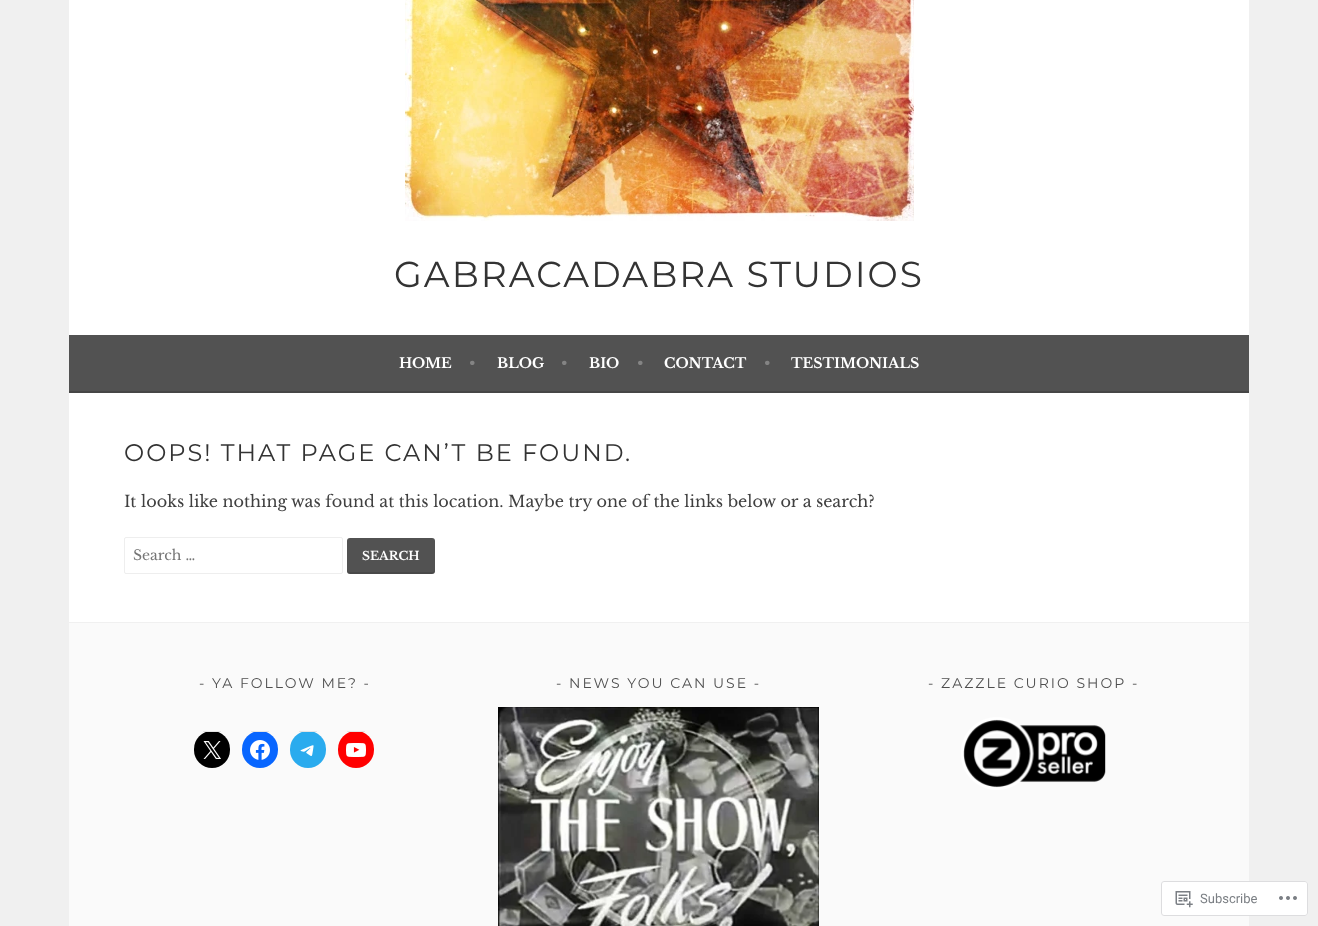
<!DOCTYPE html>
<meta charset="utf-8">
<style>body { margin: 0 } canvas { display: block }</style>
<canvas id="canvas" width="1318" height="926"></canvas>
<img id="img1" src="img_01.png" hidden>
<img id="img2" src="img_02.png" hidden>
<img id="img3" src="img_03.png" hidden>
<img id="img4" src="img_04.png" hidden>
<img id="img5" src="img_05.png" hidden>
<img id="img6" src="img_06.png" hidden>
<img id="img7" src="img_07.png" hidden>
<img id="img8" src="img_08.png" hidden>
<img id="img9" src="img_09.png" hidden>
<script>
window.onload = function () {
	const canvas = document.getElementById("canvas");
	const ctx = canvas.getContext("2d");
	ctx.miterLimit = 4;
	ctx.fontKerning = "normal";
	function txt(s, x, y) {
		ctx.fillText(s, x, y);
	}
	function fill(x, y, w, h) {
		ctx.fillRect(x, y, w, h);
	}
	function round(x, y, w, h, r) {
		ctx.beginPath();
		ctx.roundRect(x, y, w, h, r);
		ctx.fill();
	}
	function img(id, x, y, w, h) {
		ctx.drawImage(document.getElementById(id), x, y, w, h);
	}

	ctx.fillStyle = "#F0F0F0";
	fill(0, 0, 1318, 926);
	ctx.fillStyle = "#FFFFFF";
	fill(69, 0, 1180, 335);
	img("img1", 405, 0, 509, 221);
	ctx.fillStyle = "#525252";
	fill(69, 335, 1180, 56);
	ctx.fillStyle = "#464646";
	fill(69, 391, 1180, 2);
	ctx.fillStyle = "#FFFFFF";
	fill(69, 393, 1180, 229);
	ctx.beginPath();
	ctx.roundRect(124.5, 537.5, 218, 36, 1.5);
	ctx.strokeStyle = "#EEEEEE";
	ctx.stroke();
	ctx.fillStyle = "#525252";
	round(347, 538, 88, 36, 3);
	ctx.fillStyle = "rgba(0, 0, 0, 0.1)";
	ctx.beginPath();
	ctx.moveTo(347, 569);
	ctx.lineTo(347, 571);
	ctx.bezierCurveTo(347, 573, 348, 574, 350, 574);
	ctx.lineTo(432, 574);
	ctx.bezierCurveTo(434, 574, 435, 573, 435, 571);
	ctx.lineTo(435, 569);
	ctx.bezierCurveTo(435, 571, 434, 572, 432, 572);
	ctx.lineTo(350, 572);
	ctx.bezierCurveTo(348, 572, 347, 571, 347, 569);
	ctx.closePath();
	ctx.fill();
	ctx.fillStyle = "#FAFAFA";
	fill(69, 623, 1180, 303);
	ctx.fillStyle = "#000000";
	round(194, 731, 36, 37, 18);
	ctx.fillStyle = "#E5E5E5";
	fill(203, 731, 18, 1);
	img("img2", 203, 741, 18, 18);
	ctx.fillStyle = "#0866FF";
	round(242, 731, 36, 37, 18);
	ctx.fillStyle = "#E5E5E5";
	fill(251, 731, 18, 1);
	img("img3", 250, 740, 20, 20);
	ctx.fillStyle = "#2AABEE";
	round(290, 731, 36, 37, 18);
	ctx.fillStyle = "#E5E5E5";
	fill(299, 731, 18, 1);
	img("img4", 300, 745, 14, 11);
	ctx.fillStyle = "#FF0000";
	round(338, 731, 36, 37, 18);
	ctx.fillStyle = "#E5E5E5";
	fill(347, 731, 18, 1);
	img("img5", 346, 743, 20, 14);
	img("img6", 498, 707, 321, 219);
	img("img7", 961, 717, 145, 73);
	ctx.fillStyle = "rgba(255, 255, 255, 0.98)";
	round(1161, 881, 147, 35, 3);
	ctx.beginPath();
	ctx.roundRect(1161.5, 881.5, 146, 34, 2.5);
	ctx.strokeStyle = "rgba(220, 220, 222, 0.98)";
	ctx.stroke();
	img("img8", 1175, 891, 18, 17);
	img("img9", 1279, 896, 18, 4);
	ctx.letterSpacing = "2px";
	ctx.font = "100 36px Montserrat";
	ctx.fillStyle = "#333333";
	txt("GABRACADABRA STUDIOS", 394, 287);
	ctx.letterSpacing = "0px";
	ctx.font = "bold 14px Libre Baskerville";
	ctx.fillStyle = "#FFFFFF";
	txt("HOME", 399, 368);
	ctx.fillStyle = "#848484";
	txt("•", 469, 368);
	ctx.fillStyle = "#FFFFFF";
	txt("BLOG", 497, 368);
	ctx.fillStyle = "#848484";
	txt("•", 561, 368);
	ctx.fillStyle = "#FFFFFF";
	txt("BIO", 589, 368);
	ctx.fillStyle = "#848484";
	txt("•", 637, 368);
	ctx.fillStyle = "#FFFFFF";
	txt("CONTACT", 664, 368);
	ctx.fillStyle = "#848484";
	txt("•", 764, 368);
	ctx.fillStyle = "#FFFFFF";
	txt("TESTIMONIALS", 791, 368);
	ctx.letterSpacing = "2px";
	ctx.font = "100 24px Montserrat";
	ctx.fillStyle = "#333333";
	txt("OOPS! THAT PAGE CAN’T BE FOUND.", 124, 461);
	ctx.letterSpacing = "0px";
	ctx.font = "16px Libre Baskerville";
	ctx.fillStyle = "#404040";
	txt("It looks like nothing was found at this location. Maybe try one of the links below or a search?", 124, 507);
	ctx.font = "14px Libre Baskerville";
	ctx.fillStyle = "#757575";
	txt("Search …", 133, 560);
	ctx.font = "bold 12px Libre Baskerville";
	ctx.fillStyle = "#FFFFFF";
	txt("SEARCH", 362, 560);
	ctx.letterSpacing = "2px";
	ctx.font = "100 14px Montserrat";
	ctx.fillStyle = "#4F4F4F";
	txt("- YA FOLLOW ME? -", 199, 688);
	txt("- NEWS YOU CAN USE -", 556, 688);
	txt("- ZAZZLE CURIO SHOP -", 928, 688);
	ctx.letterSpacing = "0px";
	ctx.font = "13px Roboto";
	ctx.fillStyle = "#7B7F84";
	txt("Subscribe", 1200, 903);
};
</script>
